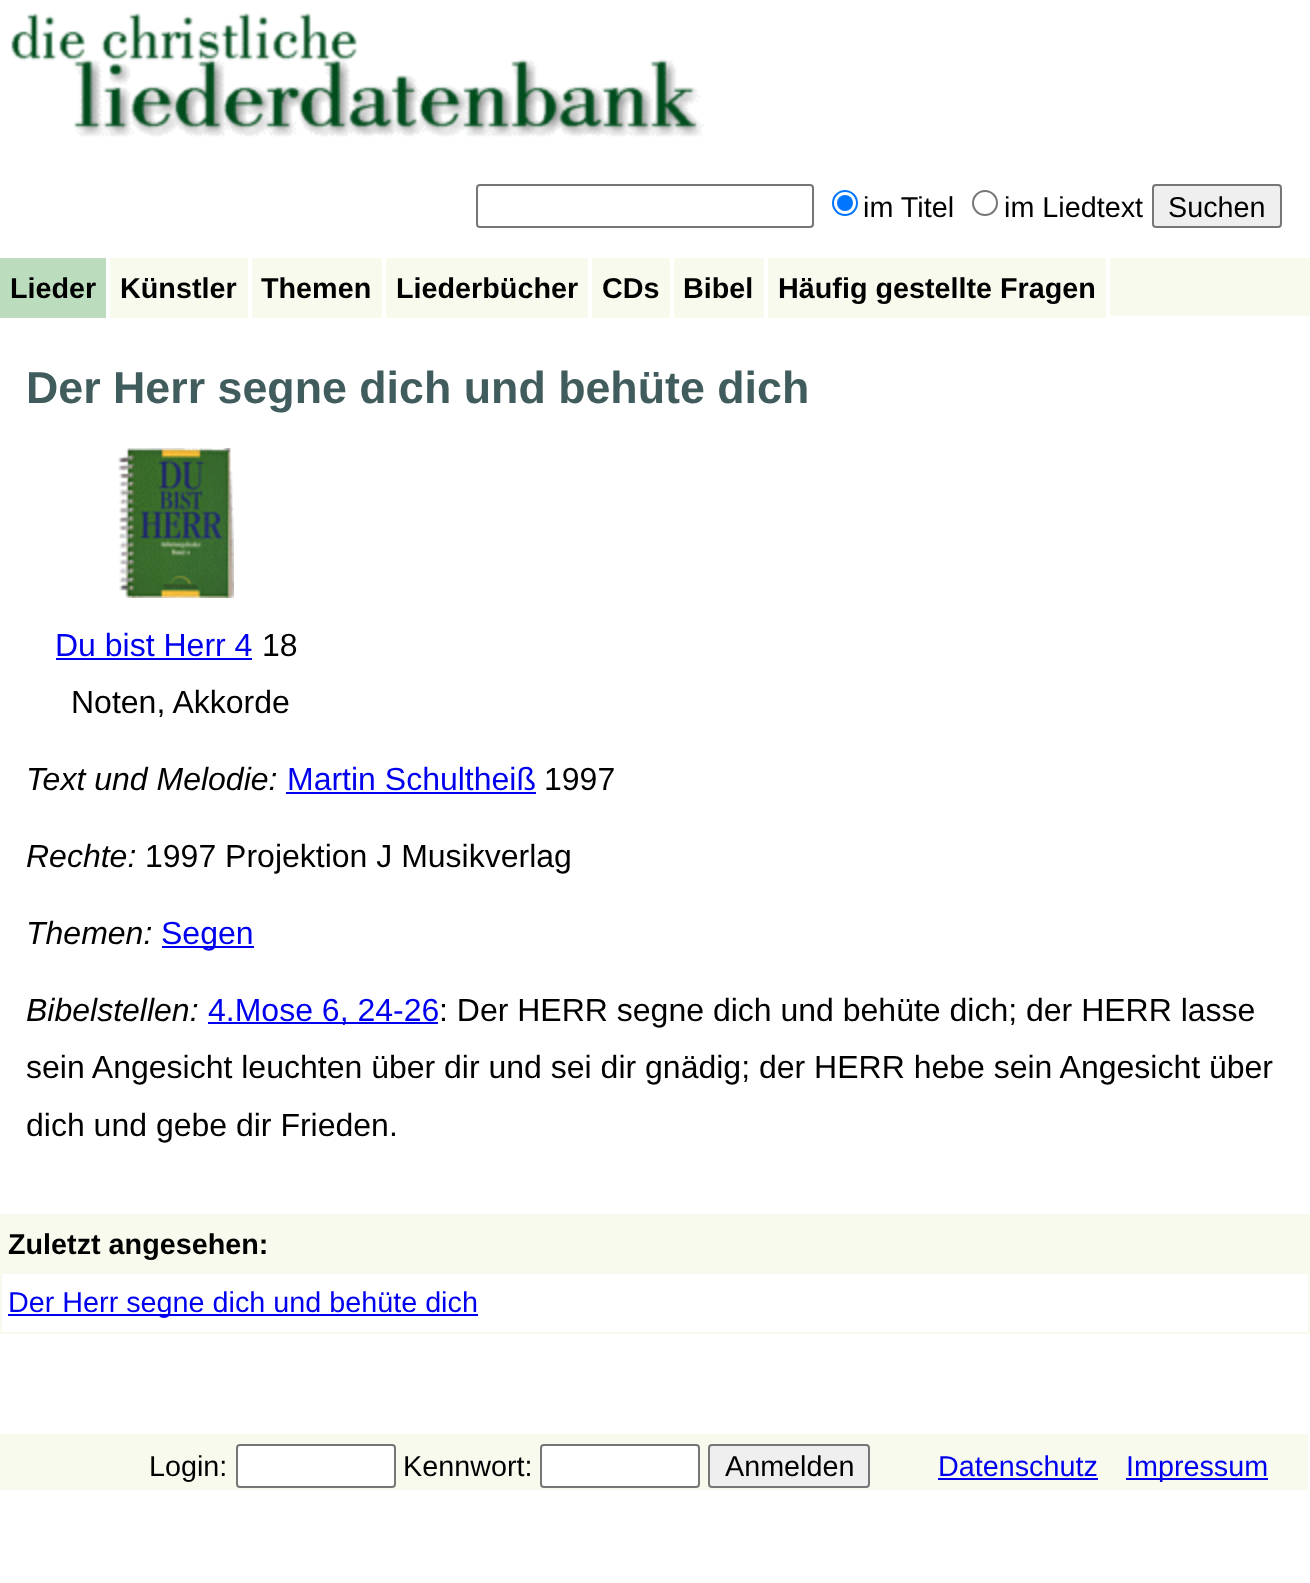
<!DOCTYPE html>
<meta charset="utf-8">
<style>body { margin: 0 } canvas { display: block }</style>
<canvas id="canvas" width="1310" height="1583"></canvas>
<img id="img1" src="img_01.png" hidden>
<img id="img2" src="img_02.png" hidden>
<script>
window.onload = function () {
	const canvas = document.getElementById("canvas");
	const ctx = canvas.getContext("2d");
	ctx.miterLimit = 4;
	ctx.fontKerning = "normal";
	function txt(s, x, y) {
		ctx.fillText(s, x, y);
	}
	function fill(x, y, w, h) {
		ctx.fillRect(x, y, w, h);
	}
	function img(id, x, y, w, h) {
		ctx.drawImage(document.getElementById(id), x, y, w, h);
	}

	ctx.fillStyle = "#FFFFFF";
	fill(0, 0, 1310, 1583);
	img("img1", 11, 13, 693, 124);
	ctx.beginPath();
	ctx.roundRect(477, 185, 336, 42, 3);
	ctx.strokeStyle = "#767676";
	ctx.lineWidth = 2;
	ctx.stroke();
	ctx.beginPath();
	ctx.arc(845, 203, 12, 0, Math.PI * 2);
	ctx.strokeStyle = "#0075FF";
	ctx.stroke();
	ctx.fillStyle = "#0075FF";
	ctx.beginPath();
	ctx.arc(845, 203, 8, 0, Math.PI * 2);
	ctx.fill();
	ctx.beginPath();
	ctx.arc(985, 203, 12, 0, Math.PI * 2);
	ctx.strokeStyle = "#767676";
	ctx.stroke();
	ctx.fillStyle = "#EFEFEF";
	ctx.beginPath();
	ctx.roundRect(1153, 185, 128, 42, 3);
	ctx.fill();
	ctx.stroke();
	ctx.fillStyle = "#F8FAED";
	fill(1110, 258, 200, 58);
	ctx.fillStyle = "#BBDDBE";
	fill(0, 258, 106, 60);
	ctx.fillStyle = "#F8FAED";
	fill(110, 258, 138, 60);
	fill(252, 258, 130, 60);
	fill(386, 258, 202, 60);
	fill(592, 258, 78, 60);
	fill(674, 258, 90, 60);
	fill(768, 258, 338, 60);
	img("img2", 118, 448, 116, 150);
	ctx.fillStyle = "#0000EE";
	fill(56, 658, 196, 2);
	fill(286, 792, 250, 2);
	fill(162, 946, 92, 2);
	fill(208, 1022, 230, 2);
	ctx.strokeStyle = "#F8FAED";
	ctx.strokeRect(1, 1215, 1308, 118);
	ctx.fillStyle = "#F8FAED";
	fill(2, 1216, 1306, 58);
	ctx.fillStyle = "#0000EE";
	fill(8, 1314, 470, 2);
	ctx.fillStyle = "#F8FAED";
	fill(0, 1434, 1308, 56);
	ctx.fillStyle = "#FFFFFF";
	ctx.beginPath();
	ctx.roundRect(237, 1445, 158, 42, 3);
	ctx.fill();
	ctx.strokeStyle = "#767676";
	ctx.stroke();
	ctx.beginPath();
	ctx.roundRect(541, 1445, 158, 42, 3);
	ctx.fill();
	ctx.stroke();
	ctx.fillStyle = "#EFEFEF";
	ctx.beginPath();
	ctx.roundRect(709, 1445, 160, 42, 3);
	ctx.fill();
	ctx.stroke();
	ctx.fillStyle = "#0000EE";
	fill(938, 1478, 160, 2);
	fill(1126, 1478, 142, 2);
	ctx.font = "28.75px Liberation Sans";
	ctx.fillStyle = "#000000";
	txt("im Titel", 863, 217);
	txt("im Liedtext", 1004, 217);
	txt("Suchen", 1168, 217);
	ctx.font = "bold 28.75px Liberation Sans";
	txt("Lieder", 10, 298);
	txt("Künstler", 120, 298);
	txt("Themen", 261, 298);
	txt("Liederbücher", 396, 298);
	txt("CDs", 602, 298);
	txt("Bibel", 683, 298);
	txt("Häufig gestellte Fragen", 778, 298);
	ctx.font = "bold 44.75px Liberation Sans";
	ctx.fillStyle = "#405C5D";
	txt("Der Herr segne dich und behüte dich", 26, 403);
	ctx.font = "32px Liberation Sans";
	ctx.fillStyle = "#0000EE";
	txt("Du bist Herr 4", 55, 656);
	ctx.fillStyle = "#000000";
	txt("18", 262, 656);
	txt("Noten, Akkorde", 71, 713);
	ctx.font = "italic 32px Liberation Sans";
	txt("Text und Melodie:", 26, 790);
	ctx.font = "32px Liberation Sans";
	ctx.fillStyle = "#0000EE";
	txt("Martin Schultheiß", 287, 790);
	ctx.fillStyle = "#000000";
	txt("1997", 544, 790);
	ctx.font = "italic 32px Liberation Sans";
	txt("Rechte:", 26, 867);
	ctx.font = "32px Liberation Sans";
	txt("1997 Projektion J Musikverlag", 145, 867);
	ctx.font = "italic 32px Liberation Sans";
	txt("Themen:", 26, 944);
	ctx.font = "32px Liberation Sans";
	ctx.fillStyle = "#0000EE";
	txt("Segen", 161, 944);
	ctx.font = "italic 32px Liberation Sans";
	ctx.fillStyle = "#000000";
	txt("Bibelstellen:", 26, 1021);
	ctx.font = "32px Liberation Sans";
	ctx.fillStyle = "#0000EE";
	txt("4.Mose 6, 24-26", 208, 1021);
	ctx.fillStyle = "#000000";
	txt(": Der HERR segne dich und behüte dich; der HERR lasse", 439, 1021);
	txt("sein Angesicht leuchten über dir und sei dir gnädig; der HERR hebe sein Angesicht über", 26, 1078);
	txt("dich und gebe dir Frieden.", 26, 1136);
	ctx.font = "bold 28.75px Liberation Sans";
	txt("Zuletzt angesehen:", 8, 1254);
	ctx.font = "28.75px Liberation Sans";
	ctx.fillStyle = "#0000EE";
	txt("Der Herr segne dich und behüte dich", 8, 1312);
	ctx.fillStyle = "#000000";
	txt("Login:", 149, 1476);
	txt("Kennwort:", 403, 1476);
	txt("Anmelden", 725, 1476);
	ctx.fillStyle = "#0000EE";
	txt("Datenschutz", 938, 1476);
	txt("Impressum", 1126, 1476);
};
</script>
